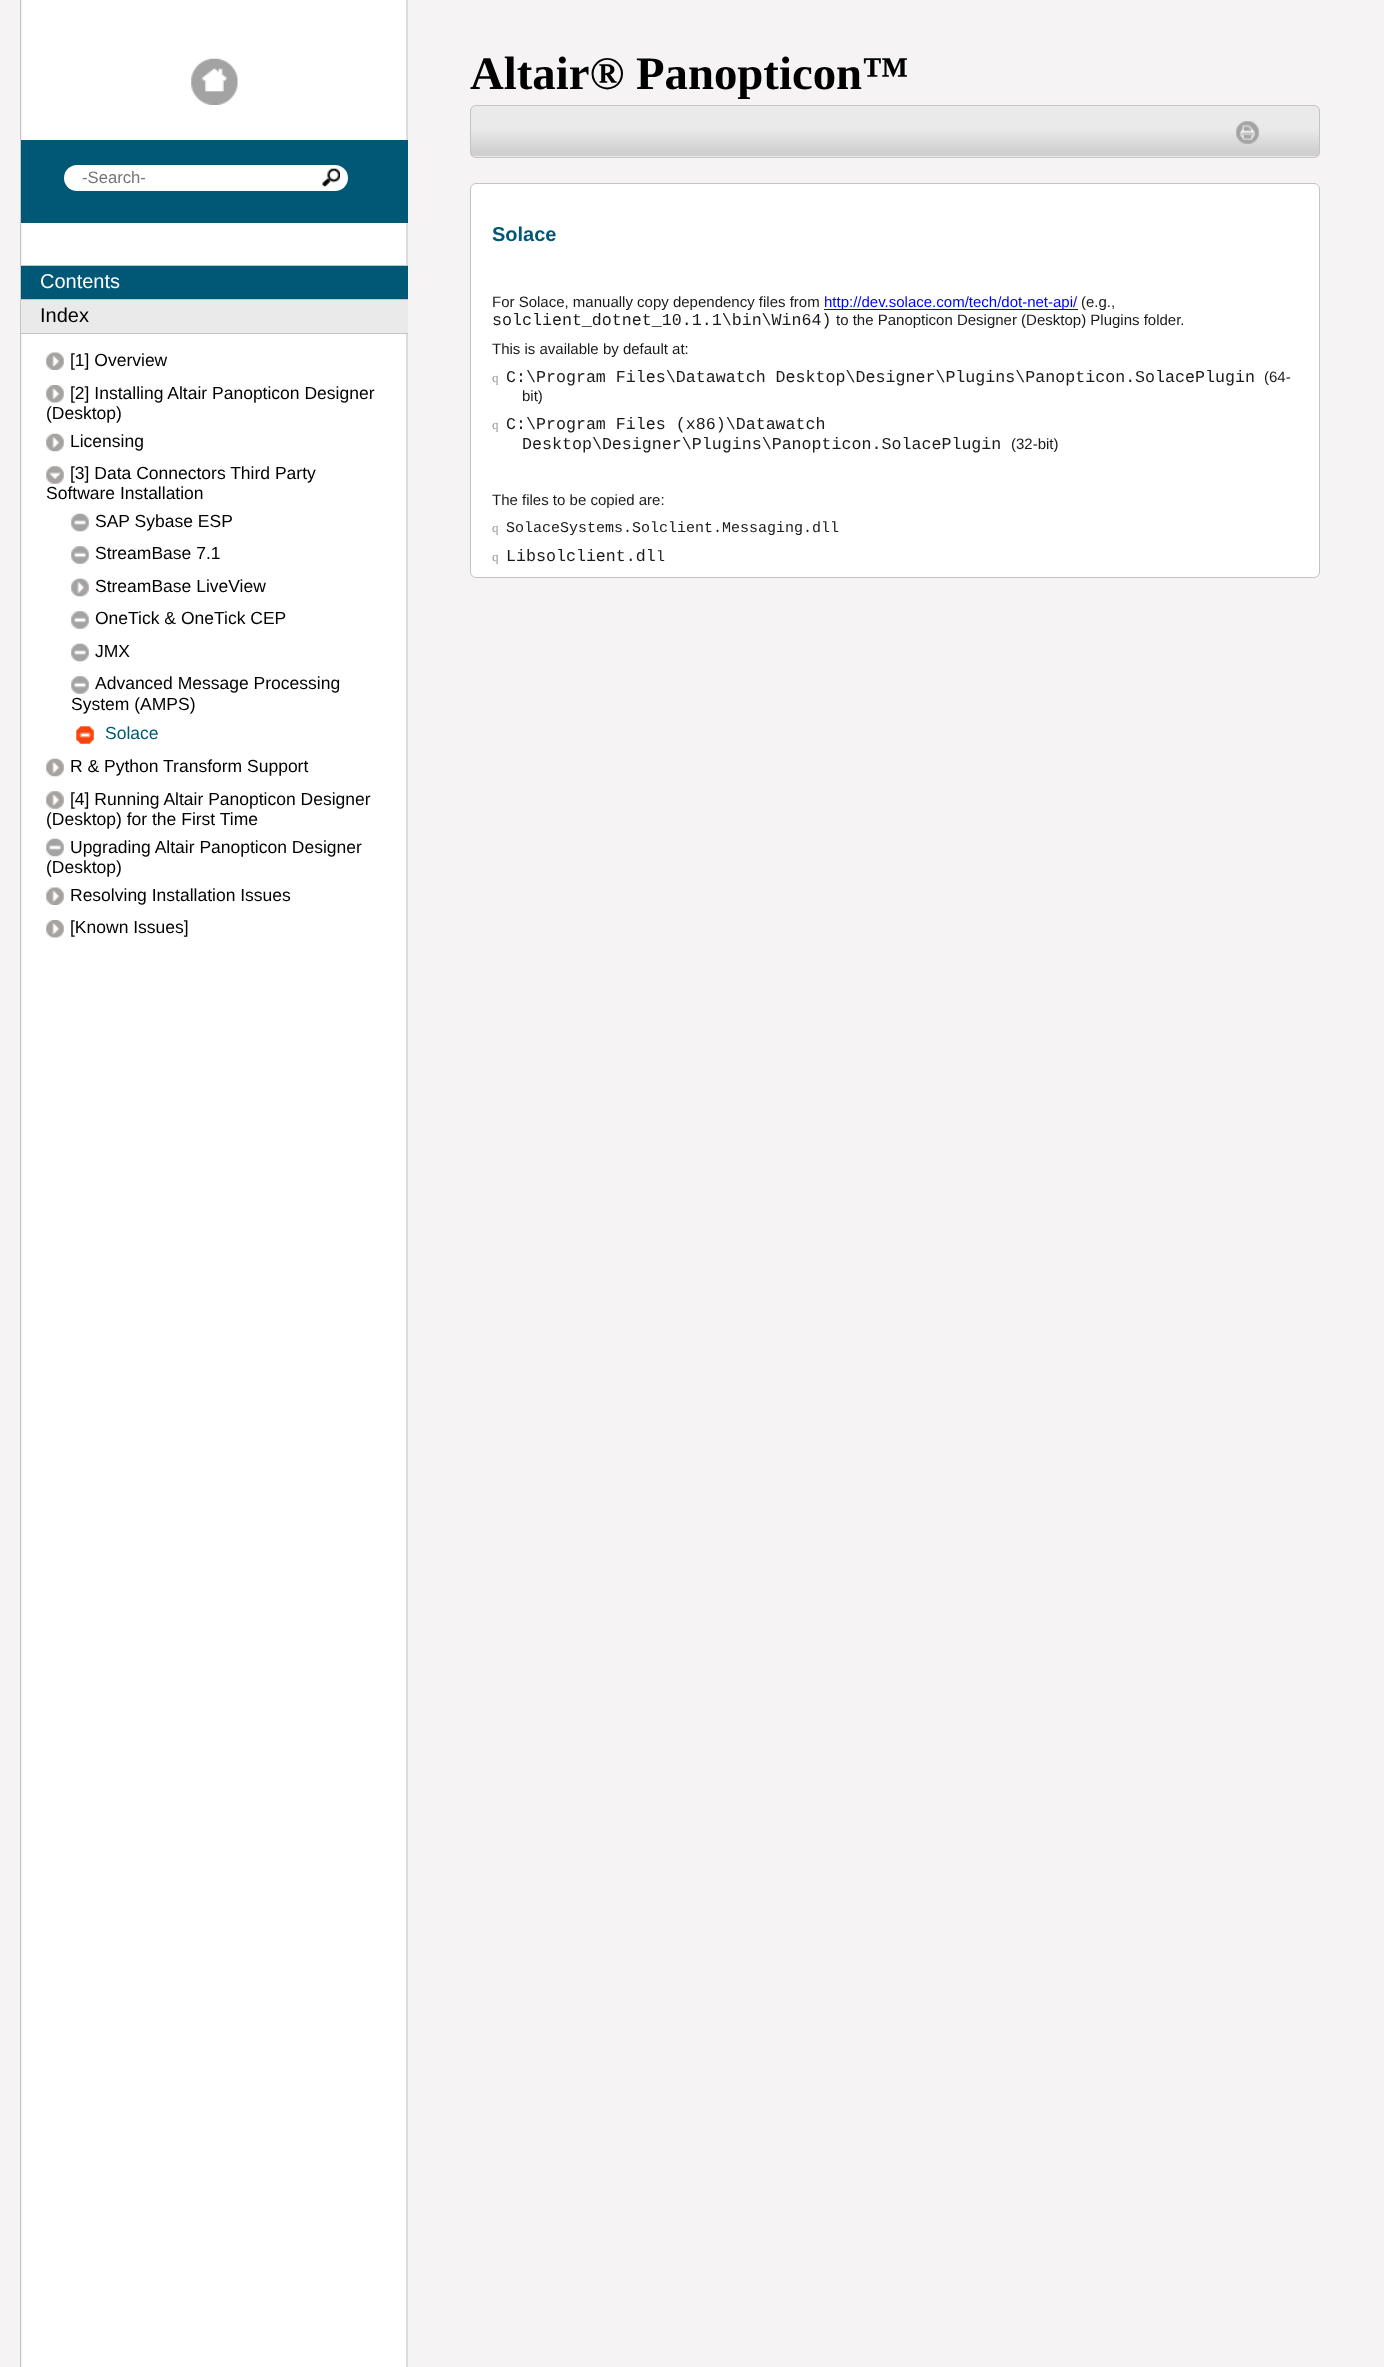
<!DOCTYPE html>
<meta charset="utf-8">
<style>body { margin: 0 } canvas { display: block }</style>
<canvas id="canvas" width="1384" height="2367"></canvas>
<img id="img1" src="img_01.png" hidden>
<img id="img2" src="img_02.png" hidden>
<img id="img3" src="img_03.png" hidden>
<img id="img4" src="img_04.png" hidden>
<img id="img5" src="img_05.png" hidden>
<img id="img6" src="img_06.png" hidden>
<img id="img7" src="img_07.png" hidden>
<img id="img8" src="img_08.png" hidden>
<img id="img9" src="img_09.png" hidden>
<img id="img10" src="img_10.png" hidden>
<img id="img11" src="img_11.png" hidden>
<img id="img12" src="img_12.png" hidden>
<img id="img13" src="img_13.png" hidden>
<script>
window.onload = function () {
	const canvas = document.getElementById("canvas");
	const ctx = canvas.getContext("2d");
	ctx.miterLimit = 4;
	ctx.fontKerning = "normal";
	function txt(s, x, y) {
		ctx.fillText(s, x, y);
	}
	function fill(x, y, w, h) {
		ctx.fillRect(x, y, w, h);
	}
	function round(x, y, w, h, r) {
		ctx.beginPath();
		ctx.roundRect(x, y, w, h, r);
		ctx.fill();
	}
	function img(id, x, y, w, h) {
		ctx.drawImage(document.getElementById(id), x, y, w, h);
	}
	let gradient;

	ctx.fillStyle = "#F5F3F4";
	fill(0, 0, 1384, 2367);
	img("img1", 20, 0, 388, 2367);
	img("img2", 191, 58, 47, 47);
	ctx.fillStyle = "#005776";
	fill(21, 140, 387, 83);
	ctx.fillStyle = "#FFFFFF";
	round(64, 165, 284, 26, 13);
	img("img3", 322, 168, 18, 19);
	ctx.fillStyle = "#C4C4C4";
	fill(21, 265, 387, 1);
	ctx.fillStyle = "#005776";
	fill(21, 266, 387, 33);
	ctx.fillStyle = "#C4C4C4";
	fill(21, 299, 387, 1);
	ctx.fillStyle = "#EAEAEA";
	fill(21, 300, 387, 33);
	ctx.fillStyle = "#C4C4C4";
	fill(21, 333, 387, 1);
	img("img4", 46, 352, 18, 18);
	img("img5", 46, 385, 18, 18);
	img("img6", 46, 433, 18, 19);
	img("img7", 46, 466, 18, 18);
	img("img8", 71, 513, 18, 19);
	img("img9", 71, 546, 18, 18);
	img("img10", 71, 578, 18, 19);
	img("img9", 71, 611, 18, 18);
	img("img8", 71, 643, 18, 19);
	img("img9", 71, 676, 18, 18);
	img("img11", 76, 726, 18, 18);
	img("img6", 46, 758, 18, 19);
	img("img12", 46, 791, 18, 18);
	img("img8", 46, 838, 18, 19);
	img("img4", 46, 887, 18, 18);
	img("img5", 46, 920, 18, 18);
	ctx.save();
	ctx.beginPath();
	ctx.roundRect(470, 105, 850, 53, 6);
	ctx.clip();
	gradient = ctx.createLinearGradient(471, 156, 471, 106);
	gradient.addColorStop(0.09, "#D0D0D0");
	gradient.addColorStop(0.55, "#EAEAEA");
	ctx.fillStyle = gradient;
	fill(470, 106, 850, 50);
	gradient = ctx.createLinearGradient(471, 206, 471, 156);
	gradient.addColorStop(0.09, "#D0D0D0");
	gradient.addColorStop(0.55, "#EAEAEA");
	ctx.fillStyle = gradient;
	fill(470, 156, 850, 2);
	ctx.restore();
	ctx.beginPath();
	ctx.roundRect(470.5, 105.5, 849, 52, 5.5);
	ctx.strokeStyle = "#C4C4C4";
	ctx.stroke();
	img("img13", 1236, 121, 23, 23);
	ctx.fillStyle = "#FFFFFF";
	ctx.beginPath();
	ctx.roundRect(470.5, 183.5, 849, 394, 5.5);
	ctx.fill();
	ctx.stroke();
	ctx.fillStyle = "#0000FF";
	fill(824, 309, 254, 1);
	ctx.font = "16.65px Liberation Sans";
	ctx.fillStyle = "#757575";
	txt("-Search-", 82, 183);
	ctx.font = "20px Liberation Sans";
	ctx.fillStyle = "#FFFFFF";
	txt("Contents", 40, 288);
	ctx.fillStyle = "#000000";
	txt("Index", 40, 322);
	ctx.font = "17.5px Liberation Sans";
	txt("[1] Overview", 70, 366);
	txt("[2] Installing Altair Panopticon Designer", 70, 399);
	txt("(Desktop)", 46, 419);
	txt("Licensing", 70, 447);
	txt("[3] Data Connectors Third Party", 70, 479);
	txt("Software Installation", 46, 499);
	txt("SAP Sybase ESP", 95, 527);
	txt("StreamBase 7.1", 95, 559);
	txt("StreamBase LiveView", 95, 592);
	txt("OneTick & OneTick CEP", 95, 624);
	txt("JMX", 95, 657);
	txt("Advanced Message Processing", 95, 689);
	txt("System (AMPS)", 71, 710);
	ctx.fillStyle = "#005776";
	txt("Solace", 105, 739);
	ctx.fillStyle = "#000000";
	txt("R & Python Transform Support", 70, 772);
	txt("[4] Running Altair Panopticon Designer", 70, 805);
	txt("(Desktop) for the First Time", 46, 825);
	txt("Upgrading Altair Panopticon Designer", 70, 853);
	txt("(Desktop)", 46, 873);
	txt("Resolving Installation Issues", 70, 901);
	txt("[Known Issues]", 70, 933);
	ctx.font = "bold 46.75px Liberation Serif";
	txt("Altair® Panopticon™", 470, 89);
	ctx.font = "bold 20px Liberation Sans";
	ctx.fillStyle = "#005776";
	txt("Solace", 492, 241);
	ctx.font = "15px Liberation Sans";
	ctx.fillStyle = "#1A1A1A";
	txt("For Solace, manually copy dependency files from", 492, 307);
	ctx.fillStyle = "#0000FF";
	txt("http://dev.solace.com/tech/dot-net-api/", 824, 307);
	ctx.fillStyle = "#1A1A1A";
	txt("(e.g.,", 1081, 307);
	ctx.font = "16.65px Liberation Mono";
	txt("solclient_dotnet_10.1.1\\bin\\Win64)", 492, 325);
	ctx.font = "15px Liberation Sans";
	txt("to the Panopticon Designer (Desktop) Plugins folder.", 836, 325);
	txt("This is available by default at:", 492, 354);
	ctx.font = "13px Liberation Serif";
	ctx.fillStyle = "#999999";
	txt("q", 492, 382);
	ctx.font = "16.65px Liberation Mono";
	ctx.fillStyle = "#1A1A1A";
	txt("C:\\Program Files\\Datawatch Desktop\\Designer\\Plugins\\Panopticon.SolacePlugin", 506, 382);
	ctx.font = "15px Liberation Sans";
	txt("(64-", 1264, 382);
	txt("bit)", 522, 401);
	ctx.font = "13px Liberation Serif";
	ctx.fillStyle = "#999999";
	txt("q", 492, 429);
	ctx.font = "16.65px Liberation Mono";
	ctx.fillStyle = "#1A1A1A";
	txt("C:\\Program Files (x86)\\Datawatch", 506, 429);
	txt("Desktop\\Designer\\Plugins\\Panopticon.SolacePlugin", 522, 449);
	ctx.font = "15px Liberation Sans";
	txt("(32-bit)", 1011, 449);
	txt("The files to be copied are:", 492, 505);
	ctx.font = "13px Liberation Serif";
	ctx.fillStyle = "#999999";
	txt("q", 492, 532);
	ctx.font = "15px Liberation Mono";
	ctx.fillStyle = "#1A1A1A";
	txt("SolaceSystems.Solclient.Messaging.dll", 506, 532);
	ctx.font = "13px Liberation Serif";
	ctx.fillStyle = "#999999";
	txt("q", 492, 561);
	ctx.font = "16.65px Liberation Mono";
	ctx.fillStyle = "#1A1A1A";
	txt("Libsolclient.dl", 506, 561);
	ctx.font = "15px Liberation Mono";
	txt("l", 656, 561);
};
</script>
